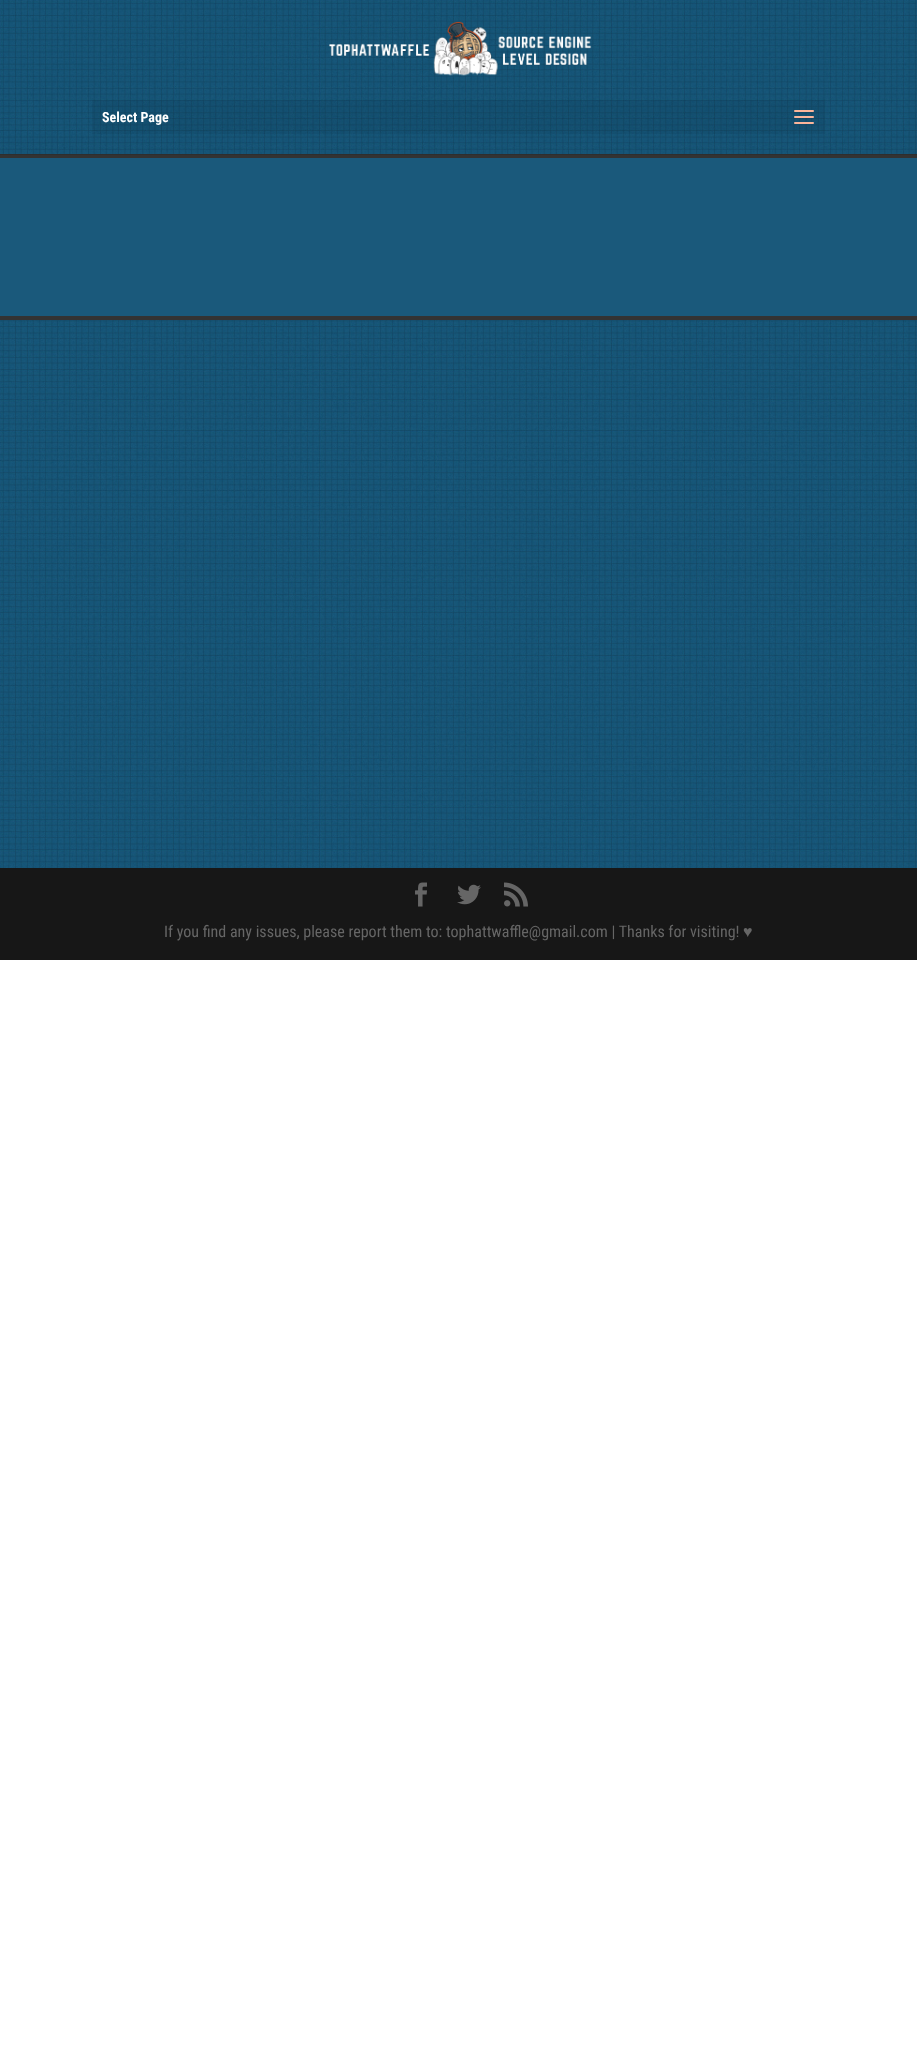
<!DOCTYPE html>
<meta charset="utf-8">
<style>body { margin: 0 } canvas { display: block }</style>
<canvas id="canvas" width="917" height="2070"></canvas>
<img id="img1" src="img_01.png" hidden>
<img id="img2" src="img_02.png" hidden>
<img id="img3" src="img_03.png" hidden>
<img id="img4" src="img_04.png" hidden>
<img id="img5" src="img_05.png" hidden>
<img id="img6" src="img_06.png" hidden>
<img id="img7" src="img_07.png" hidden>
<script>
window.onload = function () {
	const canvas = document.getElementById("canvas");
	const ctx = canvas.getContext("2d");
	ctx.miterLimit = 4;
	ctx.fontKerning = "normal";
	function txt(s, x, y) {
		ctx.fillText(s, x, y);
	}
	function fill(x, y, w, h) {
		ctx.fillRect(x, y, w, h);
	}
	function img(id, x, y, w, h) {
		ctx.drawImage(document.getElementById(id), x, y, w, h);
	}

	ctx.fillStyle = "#FFFFFF";
	fill(0, 0, 917, 2070);
	ctx.fillStyle = "#2E2E2E";
	fill(0, 154, 917, 1);
	img("img1", 0, 0, 917, 154);
	img("img2", 329, 21, 263, 55);
	ctx.fillStyle = "rgba(0, 0, 0, 0.05)";
	fill(92, 100, 733, 34);
	img("img3", 794, 110, 20, 14);
	ctx.fillStyle = "#1A597B";
	fill(0, 158, 917, 158);
	ctx.fillStyle = "#333333";
	fill(0, 155, 917, 3);
	fill(0, 316, 917, 4);
	img("img4", 0, 320, 917, 548);
	ctx.fillStyle = "#171717";
	fill(0, 868, 917, 92);
	img("img5", 415, 882, 12, 25);
	img("img6", 457, 884, 24, 21);
	img("img7", 504, 882, 24, 25);
	ctx.font = "bold 14px Roboto Condensed";
	ctx.fillStyle = "#FFFFFF";
	txt("Select Page", 102, 122);
	ctx.font = "16px Roboto Condensed";
	ctx.fillStyle = "#666666";
	txt("If you find any issues, please report them to: tophattwaffle@gmail.com | Thanks for visiting!", 164, 937);
	ctx.font = "16px Liberation Sans";
	txt("♥", 743, 937);
};
</script>
